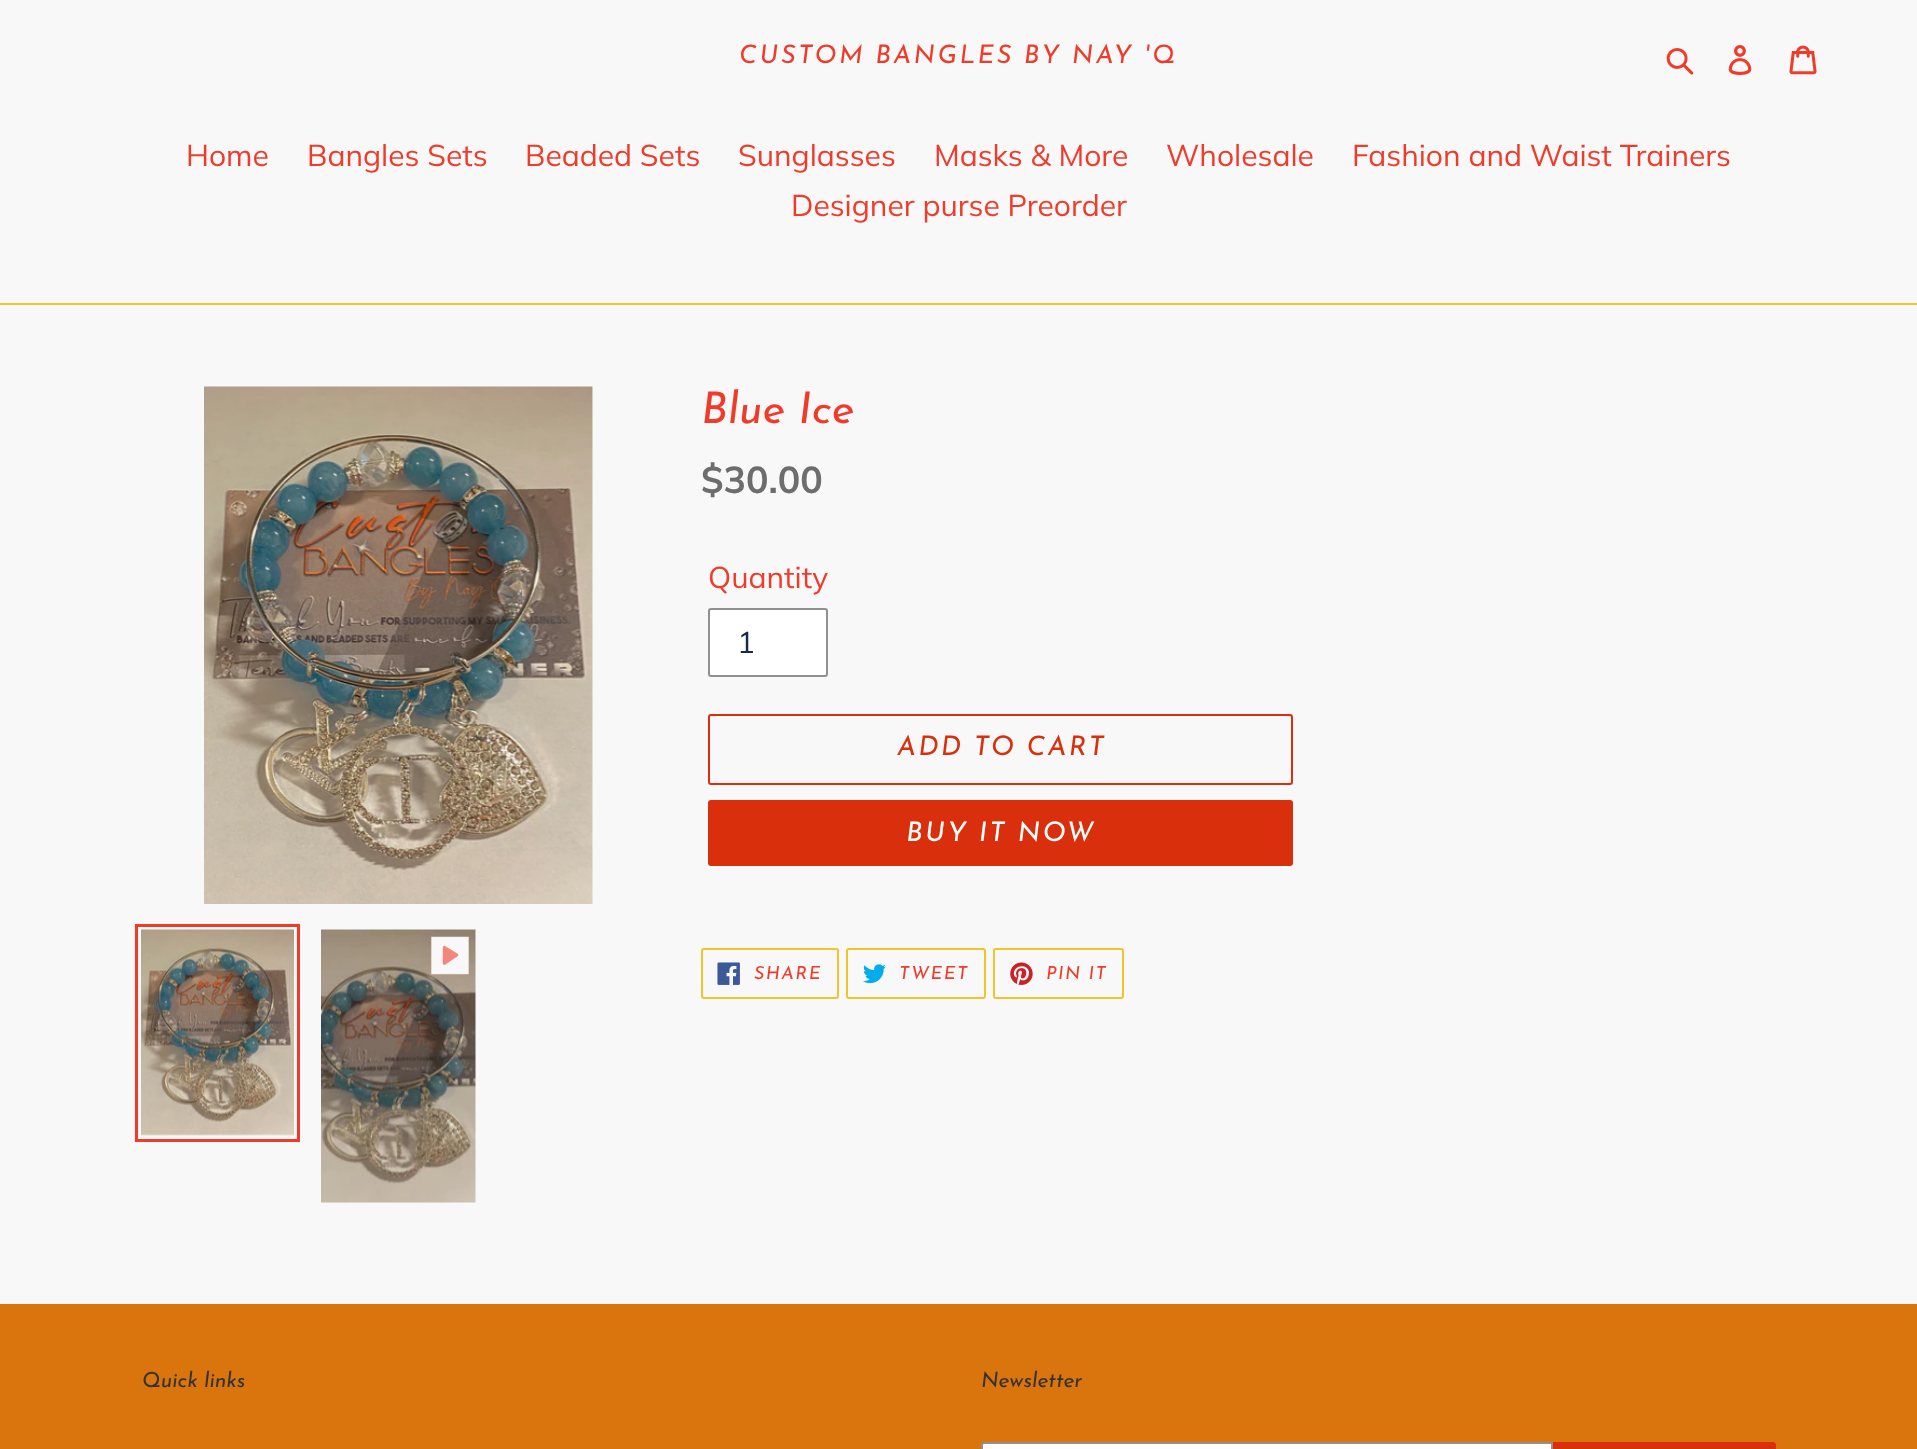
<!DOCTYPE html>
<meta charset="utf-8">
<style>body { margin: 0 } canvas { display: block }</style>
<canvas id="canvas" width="1917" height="1449"></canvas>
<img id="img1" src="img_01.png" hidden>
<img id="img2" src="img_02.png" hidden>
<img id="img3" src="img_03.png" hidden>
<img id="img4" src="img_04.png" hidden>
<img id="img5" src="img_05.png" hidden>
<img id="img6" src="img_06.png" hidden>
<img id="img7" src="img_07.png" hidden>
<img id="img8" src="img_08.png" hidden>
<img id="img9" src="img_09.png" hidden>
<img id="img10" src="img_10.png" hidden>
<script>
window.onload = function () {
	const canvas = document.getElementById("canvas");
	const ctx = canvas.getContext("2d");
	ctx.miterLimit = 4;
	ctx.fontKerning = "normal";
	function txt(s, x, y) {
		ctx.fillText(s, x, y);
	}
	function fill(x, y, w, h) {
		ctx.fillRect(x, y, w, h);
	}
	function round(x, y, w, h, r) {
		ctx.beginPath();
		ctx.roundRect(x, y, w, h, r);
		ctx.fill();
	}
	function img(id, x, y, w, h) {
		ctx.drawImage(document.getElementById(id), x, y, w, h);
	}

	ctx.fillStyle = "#F8F8F8";
	fill(0, 0, 1917, 1449);
	img("img1", 1666, 48, 28, 27);
	img("img2", 1728, 45, 24, 30);
	img("img3", 1789, 45, 28, 30);
	ctx.fillStyle = "#F0C42B";
	fill(0, 303, 1917, 2);
	img("img4", 204, 386, 389, 518);
	ctx.strokeStyle = "#F03B2B";
	ctx.lineWidth = 3;
	ctx.strokeRect(136.5, 925.5, 162, 215);
	img("img5", 141, 929, 153, 207);
	img("img6", 321, 929, 155, 274);
	img("img7", 431, 936, 38, 39);
	ctx.fillStyle = "#FFFFFF";
	ctx.beginPath();
	ctx.roundRect(709, 609, 118, 67, 2);
	ctx.fill();
	ctx.strokeStyle = "#909090";
	ctx.lineWidth = 2;
	ctx.stroke();
	ctx.beginPath();
	ctx.roundRect(709, 715, 583, 69, 2);
	ctx.strokeStyle = "#DA2F0C";
	ctx.stroke();
	ctx.fillStyle = "#DA2F0C";
	round(708, 800, 585, 66, 3);
	ctx.beginPath();
	ctx.roundRect(702, 949, 136, 49, 2);
	ctx.strokeStyle = "#F0C42B";
	ctx.stroke();
	img("img8", 717, 962, 23, 23);
	ctx.beginPath();
	ctx.roundRect(847, 949, 138, 49, 2);
	ctx.stroke();
	img("img9", 863, 964, 23, 20);
	ctx.beginPath();
	ctx.roundRect(994, 949, 129, 49, 2);
	ctx.stroke();
	img("img10", 1010, 962, 23, 23);
	ctx.fillStyle = "#DA740C";
	fill(0, 1304, 1917, 145);
	ctx.fillStyle = "#FFFFFF";
	ctx.beginPath();
	ctx.moveTo(984, 1443);
	ctx.lineTo(1552, 1443);
	ctx.lineTo(1552, 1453);
	ctx.lineTo(984, 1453);
	ctx.bezierCurveTo(983, 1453, 982, 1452, 982, 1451);
	ctx.lineTo(982, 1445);
	ctx.bezierCurveTo(982, 1444, 983, 1443, 984, 1443);
	ctx.closePath();
	ctx.fill();
	ctx.strokeStyle = "#909090";
	ctx.stroke();
	ctx.fillStyle = "#DA2F0C";
	ctx.beginPath();
	ctx.moveTo(1553, 1442);
	ctx.lineTo(1773, 1442);
	ctx.bezierCurveTo(1774.5, 1442, 1776, 1443.5, 1776, 1445);
	ctx.lineTo(1776, 1449);
	ctx.bezierCurveTo(1776, 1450.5, 1774.5, 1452, 1773, 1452);
	ctx.lineTo(1553, 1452);
	ctx.closePath();
	ctx.fill();
	ctx.letterSpacing = "2.55px";
	ctx.font = "italic 25.5px Josefin Sans";
	ctx.fillStyle = "#F03B2B";
	txt("CUSTOM BANGLES BY NAY 'Q", 739, 63);
	ctx.letterSpacing = "0px";
	ctx.font = "30px Muli";
	txt("Home", 186, 166);
	txt("Bangles Sets", 307, 166);
	txt("Beaded Sets", 525, 166);
	txt("Sunglasses", 738, 166);
	txt("Masks & More", 934, 166);
	txt("Wholesale", 1166, 166);
	txt("Fashion and Waist Trainers", 1352, 166);
	txt("Designer purse Preorder", 791, 216);
	ctx.font = "italic 43.5px Josefin Sans";
	txt("Blue Ice", 701, 423);
	ctx.font = "bold 37.5px Muli";
	ctx.fillStyle = "#6D6D6D";
	txt("$30.00", 701, 493);
	ctx.font = "30px Muli";
	ctx.fillStyle = "#F03B2B";
	txt("Quantity", 708, 588);
	ctx.fillStyle = "#162950";
	txt("1", 737, 653);
	ctx.letterSpacing = "2.25px";
	ctx.font = "italic 27px Josefin Sans";
	ctx.fillStyle = "#DA2F0C";
	txt("ADD TO CART", 897, 755);
	ctx.fillStyle = "#FFFFFF";
	txt("BUY IT NOW", 906, 841);
	ctx.letterSpacing = "1.5px";
	ctx.font = "italic 18px Josefin Sans";
	ctx.fillStyle = "#F03B2B";
	txt("SHARE", 754, 979);
	txt("TWEET", 899, 979);
	txt("PIN IT", 1046, 979);
	ctx.letterSpacing = "0px";
	ctx.font = "italic 21px Josefin Sans";
	ctx.fillStyle = "#333232";
	txt("Quick links", 141, 1387);
	txt("Newsletter", 981, 1387);
};
</script>
